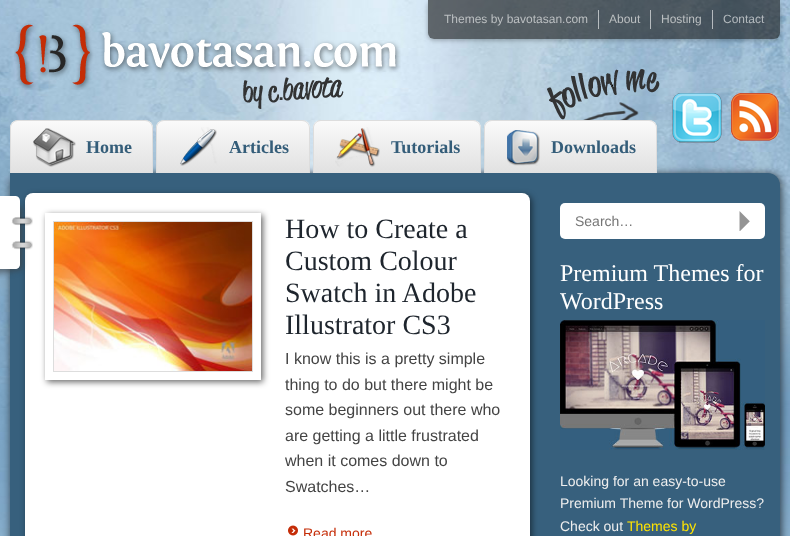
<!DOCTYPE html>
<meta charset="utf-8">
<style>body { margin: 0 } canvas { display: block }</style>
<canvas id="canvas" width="790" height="536"></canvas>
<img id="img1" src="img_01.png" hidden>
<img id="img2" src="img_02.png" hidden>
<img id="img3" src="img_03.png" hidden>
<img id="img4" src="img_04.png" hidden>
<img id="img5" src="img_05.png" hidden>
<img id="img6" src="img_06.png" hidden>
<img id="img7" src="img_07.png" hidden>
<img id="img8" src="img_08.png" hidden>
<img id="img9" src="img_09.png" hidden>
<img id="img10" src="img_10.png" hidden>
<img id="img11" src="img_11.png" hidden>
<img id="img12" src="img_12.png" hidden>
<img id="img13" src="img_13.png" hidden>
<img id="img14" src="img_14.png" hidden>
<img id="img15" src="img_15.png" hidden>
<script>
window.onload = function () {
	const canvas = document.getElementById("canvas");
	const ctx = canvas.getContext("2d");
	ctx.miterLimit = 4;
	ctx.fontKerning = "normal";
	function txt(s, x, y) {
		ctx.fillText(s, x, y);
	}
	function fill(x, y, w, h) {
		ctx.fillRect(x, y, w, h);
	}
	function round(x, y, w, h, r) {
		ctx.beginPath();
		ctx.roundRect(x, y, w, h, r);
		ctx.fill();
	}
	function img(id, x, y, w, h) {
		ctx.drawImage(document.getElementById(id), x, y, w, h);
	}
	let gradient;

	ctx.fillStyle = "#FFFFFF";
	fill(0, 0, 790, 536);
	img("img1", 0, 0, 790, 536);
	ctx.save();
	ctx.beginPath();
	ctx.moveTo(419, 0);
	ctx.lineTo(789, 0);
	ctx.lineTo(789, 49);
	ctx.lineTo(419, 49);
	ctx.closePath();
	ctx.moveTo(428, 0);
	ctx.lineTo(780, 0);
	ctx.lineTo(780, 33);
	ctx.bezierCurveTo(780, 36.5, 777.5, 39, 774, 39);
	ctx.lineTo(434, 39);
	ctx.bezierCurveTo(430.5, 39, 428, 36.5, 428, 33);
	ctx.closePath();
	ctx.clip("evenodd");
	ctx.fillStyle = "rgba(0, 0, 0, 0.3)";
	ctx.filter = "blur(2.5px)";
	ctx.beginPath();
	ctx.roundRect(428, 1, 352, 39, 6);
	ctx.fill();
	ctx.filter = "none";
	ctx.restore();
	ctx.fillStyle = "rgba(17, 17, 17, 0.6)";
	ctx.beginPath();
	ctx.roundRect(428, 0, 352, 39, [0, 0, 6, 6]);
	ctx.fill();
	ctx.fillStyle = "rgba(255, 255, 255, 0.6)";
	fill(598, 10, 1, 19);
	fill(650, 10, 1, 19);
	fill(712, 10, 1, 19);
	img("img2", 14, 23, 387, 67);
	img("img3", 243, 77, 101, 32);
	img("img4", 547, 69, 113, 51);
	img("img5", 672, 93, 50, 50);
	img("img6", 731, 93, 48, 48);
	ctx.save();
	ctx.beginPath();
	ctx.roundRect(10, 120, 143, 53, [8, 8, 0, 0]);
	ctx.clip();
	gradient = ctx.createLinearGradient(11, 69, 11, 121);
	gradient.addColorStop(0, "#FAFAFA");
	gradient.addColorStop(1, "#E1E1E1");
	ctx.fillStyle = gradient;
	fill(10, 120, 143, 1);
	ctx.restore();
	ctx.fillStyle = "rgba(0, 0, 0, 0.7)";
	ctx.filter = "blur(4px)";
	ctx.beginPath();
	ctx.roundRect(11, 174, 770, 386, 12);
	ctx.fill();
	ctx.filter = "none";
	ctx.save();
	ctx.beginPath();
	ctx.roundRect(10, 120, 143, 53, [8, 8, 0, 0]);
	ctx.clip();
	gradient = ctx.createLinearGradient(11, 121, 11, 173);
	gradient.addColorStop(0, "#FAFAFA");
	gradient.addColorStop(1, "#E1E1E1");
	ctx.fillStyle = gradient;
	fill(10, 121, 143, 52);
	ctx.restore();
	ctx.fillStyle = "#DDDDDD";
	ctx.beginPath();
	ctx.moveTo(18, 120);
	ctx.lineTo(145, 120);
	ctx.bezierCurveTo(149, 120, 153, 124, 153, 128);
	ctx.lineTo(153, 173);
	ctx.lineTo(10, 173);
	ctx.lineTo(10, 128);
	ctx.bezierCurveTo(10, 124, 14, 120, 18, 120);
	ctx.closePath();
	ctx.moveTo(18, 121);
	ctx.lineTo(145, 121);
	ctx.bezierCurveTo(149, 121, 152, 124, 152, 128);
	ctx.lineTo(152, 173);
	ctx.lineTo(11, 173);
	ctx.lineTo(11, 128);
	ctx.bezierCurveTo(11, 124, 14, 121, 18, 121);
	ctx.closePath();
	ctx.fill("evenodd");
	img("img7", 33, 128, 43, 39);
	ctx.save();
	ctx.beginPath();
	ctx.roundRect(156, 120, 154, 53, [8, 8, 0, 0]);
	ctx.clip();
	gradient = ctx.createLinearGradient(157, 69, 157, 121);
	gradient.addColorStop(0, "#FAFAFA");
	gradient.addColorStop(1, "#E1E1E1");
	ctx.fillStyle = gradient;
	fill(156, 120, 154, 1);
	gradient = ctx.createLinearGradient(157, 121, 157, 173);
	gradient.addColorStop(0, "#FAFAFA");
	gradient.addColorStop(1, "#E1E1E1");
	ctx.fillStyle = gradient;
	fill(156, 121, 154, 52);
	ctx.restore();
	ctx.beginPath();
	ctx.moveTo(164, 120);
	ctx.lineTo(302, 120);
	ctx.bezierCurveTo(306, 120, 310, 124, 310, 128);
	ctx.lineTo(310, 173);
	ctx.lineTo(156, 173);
	ctx.lineTo(156, 128);
	ctx.bezierCurveTo(156, 124, 160, 120, 164, 120);
	ctx.closePath();
	ctx.moveTo(164, 121);
	ctx.lineTo(302, 121);
	ctx.bezierCurveTo(306, 121, 309, 124, 309, 128);
	ctx.lineTo(309, 173);
	ctx.lineTo(157, 173);
	ctx.lineTo(157, 128);
	ctx.bezierCurveTo(157, 124, 160, 121, 164, 121);
	ctx.closePath();
	ctx.fill("evenodd");
	img("img8", 180, 127, 37, 39);
	ctx.save();
	ctx.beginPath();
	ctx.roundRect(313, 120, 168, 53, [8, 8, 0, 0]);
	ctx.clip();
	gradient = ctx.createLinearGradient(314, 69, 314, 121);
	gradient.addColorStop(0, "#FAFAFA");
	gradient.addColorStop(1, "#E1E1E1");
	ctx.fillStyle = gradient;
	fill(313, 120, 168, 1);
	gradient = ctx.createLinearGradient(314, 121, 314, 173);
	gradient.addColorStop(0, "#FAFAFA");
	gradient.addColorStop(1, "#E1E1E1");
	ctx.fillStyle = gradient;
	fill(313, 121, 168, 52);
	ctx.restore();
	ctx.beginPath();
	ctx.moveTo(321, 120);
	ctx.lineTo(473, 120);
	ctx.bezierCurveTo(477, 120, 481, 124, 481, 128);
	ctx.lineTo(481, 173);
	ctx.lineTo(313, 173);
	ctx.lineTo(313, 128);
	ctx.bezierCurveTo(313, 124, 317, 120, 321, 120);
	ctx.closePath();
	ctx.moveTo(321, 121);
	ctx.lineTo(473, 121);
	ctx.bezierCurveTo(477, 121, 480, 124, 480, 128);
	ctx.lineTo(480, 173);
	ctx.lineTo(314, 173);
	ctx.lineTo(314, 128);
	ctx.bezierCurveTo(314, 124, 317, 121, 321, 121);
	ctx.closePath();
	ctx.fill("evenodd");
	img("img9", 335, 127, 45, 40);
	ctx.save();
	ctx.beginPath();
	ctx.roundRect(484, 120, 173, 53, [8, 8, 0, 0]);
	ctx.clip();
	gradient = ctx.createLinearGradient(485, 69, 485, 121);
	gradient.addColorStop(0, "#FAFAFA");
	gradient.addColorStop(1, "#E1E1E1");
	ctx.fillStyle = gradient;
	fill(484, 120, 173, 1);
	gradient = ctx.createLinearGradient(485, 121, 485, 173);
	gradient.addColorStop(0, "#FAFAFA");
	gradient.addColorStop(1, "#E1E1E1");
	ctx.fillStyle = gradient;
	fill(484, 121, 173, 52);
	ctx.restore();
	ctx.beginPath();
	ctx.moveTo(492, 120);
	ctx.lineTo(649, 120);
	ctx.bezierCurveTo(653, 120, 657, 124, 657, 128);
	ctx.lineTo(657, 173);
	ctx.lineTo(484, 173);
	ctx.lineTo(484, 128);
	ctx.bezierCurveTo(484, 124, 488, 120, 492, 120);
	ctx.closePath();
	ctx.moveTo(492, 121);
	ctx.lineTo(649, 121);
	ctx.bezierCurveTo(653, 121, 656, 124, 656, 128);
	ctx.lineTo(656, 173);
	ctx.lineTo(485, 173);
	ctx.lineTo(485, 128);
	ctx.bezierCurveTo(485, 124, 488, 121, 492, 121);
	ctx.closePath();
	ctx.fill("evenodd");
	img("img10", 507, 130, 33, 36);
	ctx.fillStyle = "#37607D";
	ctx.beginPath();
	ctx.moveTo(10, 173);
	ctx.lineTo(768, 173);
	ctx.bezierCurveTo(774.5, 173, 780, 178.5, 780, 185);
	ctx.lineTo(780, 536);
	ctx.bezierCurveTo(780, 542.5, 774.5, 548, 768, 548);
	ctx.lineTo(22, 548);
	ctx.bezierCurveTo(15.5, 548, 10, 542.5, 10, 536);
	ctx.closePath();
	ctx.fill();
	ctx.fillStyle = "rgba(0, 0, 0, 0.5)";
	ctx.filter = "blur(3px)";
	ctx.beginPath();
	ctx.roundRect(27, 195, 505, 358, 8);
	ctx.fill();
	ctx.filter = "none";
	ctx.fillStyle = "#FFFFFF";
	round(25, 193, 505, 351, 8);
	img("img11", 0, 196, 33, 83);
	ctx.save();
	ctx.beginPath();
	ctx.moveTo(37, 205);
	ctx.lineTo(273, 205);
	ctx.lineTo(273, 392);
	ctx.lineTo(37, 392);
	ctx.closePath();
	ctx.moveTo(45, 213);
	ctx.lineTo(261, 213);
	ctx.lineTo(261, 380);
	ctx.lineTo(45, 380);
	ctx.closePath();
	ctx.clip("evenodd");
	ctx.fillStyle = "rgba(0, 0, 0, 0.6)";
	ctx.filter = "blur(3px)";
	ctx.beginPath();
	ctx.rect(47, 215, 216, 167);
	ctx.fill();
	ctx.filter = "none";
	ctx.restore();
	ctx.strokeStyle = "#DDDDDD";
	ctx.strokeRect(53.5, 221.5, 199, 150);
	img("img12", 54, 222, 198, 149);
	img("img13", 288, 525, 10, 11);
	round(560, 203, 205, 36, 5);
	img("img14", 739, 211, 11, 20);
	img("img15", 560, 320, 205, 130);
	ctx.font = "12px Liberation Sans";
	ctx.fillStyle = "#BBBFC1";
	txt("Themes by bavotasan.com", 444, 23);
	txt("About", 609, 23);
	txt("Hosting", 661, 23);
	ctx.fillStyle = "#B4BABE";
	txt("Contact", 723, 23);
	ctx.font = "bold 18px Liberation Serif";
	ctx.fillStyle = "#345D79";
	txt("Home", 86, 153);
	txt("Articles", 229, 153);
	txt("Tutorials", 391, 153);
	txt("Downloads", 551, 153);
	ctx.font = "28px Liberation Serif";
	ctx.fillStyle = "#1E252D";
	txt("How to Create a", 285, 238);
	txt("Custom Colour", 285, 270);
	txt("Swatch in Adobe", 285, 302);
	txt("Illustrator CS3", 285, 334);
	ctx.font = "16px Liberation Sans";
	ctx.fillStyle = "#444444";
	txt("I know this is a pretty simple", 285, 364);
	txt("thing to do but there might be", 285, 390);
	txt("some beginners out there who", 285, 415);
	txt("are getting a little frustrated", 285, 441);
	txt("when it comes down to", 285, 466);
	txt("Swatches…", 285, 492);
	ctx.font = "14px Liberation Sans";
	ctx.fillStyle = "#C52D08";
	txt("Read more", 303, 538);
	ctx.fillStyle = "#757575";
	txt("Search…", 575, 226);
	ctx.font = "24px Liberation Serif";
	ctx.fillStyle = "#FFFFFF";
	txt("Premium Themes for", 560, 281);
	txt("WordPress", 560, 309);
	ctx.font = "14px Liberation Sans";
	ctx.fillStyle = "#EEEEEE";
	txt("Looking for an easy-to-use", 560, 486);
	txt("Premium Theme for WordPress?", 560, 508);
	txt("Check out", 560, 531);
	ctx.fillStyle = "#FFE400";
	txt("Themes by", 627, 531);
};
</script>
